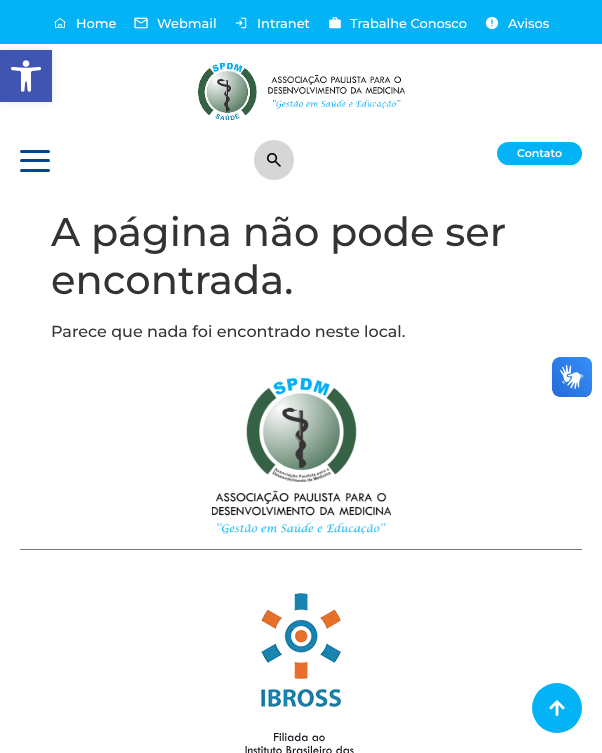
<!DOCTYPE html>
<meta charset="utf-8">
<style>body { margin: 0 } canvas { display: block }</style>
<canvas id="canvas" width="602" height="753"></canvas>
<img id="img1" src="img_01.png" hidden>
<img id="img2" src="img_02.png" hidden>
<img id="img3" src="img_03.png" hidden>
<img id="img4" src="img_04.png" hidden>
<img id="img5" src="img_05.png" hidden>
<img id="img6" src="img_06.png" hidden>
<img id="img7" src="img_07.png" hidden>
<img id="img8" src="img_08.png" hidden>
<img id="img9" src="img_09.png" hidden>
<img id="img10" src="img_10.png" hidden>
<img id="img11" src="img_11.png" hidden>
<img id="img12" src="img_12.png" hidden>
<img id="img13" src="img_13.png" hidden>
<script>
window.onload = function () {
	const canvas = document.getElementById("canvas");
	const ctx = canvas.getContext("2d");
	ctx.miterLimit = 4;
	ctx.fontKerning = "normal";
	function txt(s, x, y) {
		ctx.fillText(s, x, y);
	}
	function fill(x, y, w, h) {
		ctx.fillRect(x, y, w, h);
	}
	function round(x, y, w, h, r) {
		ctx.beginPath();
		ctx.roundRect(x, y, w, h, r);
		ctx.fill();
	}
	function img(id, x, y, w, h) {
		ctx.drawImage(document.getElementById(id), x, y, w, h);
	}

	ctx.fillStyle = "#FFFFFF";
	fill(0, 0, 602, 753);
	ctx.fillStyle = "#04B3F5";
	fill(0, 0, 602, 44);
	ctx.fillStyle = "rgba(0, 0, 0, 0.1)";
	ctx.filter = "blur(5px)";
	ctx.beginPath();
	ctx.rect(0, 50, 52, 52);
	ctx.fill();
	ctx.filter = "none";
	ctx.fillStyle = "#4054B2";
	fill(0, 50, 52, 52);
	img("img1", 11, 60, 30, 32);
	img("img2", 54, 18, 12, 10);
	img("img3", 134, 17, 14, 12);
	img("img4", 235, 17, 12, 12);
	img("img5", 329, 17, 12, 12);
	img("img6", 485, 16, 14, 14);
	img("img7", 198, 63, 207, 57);
	ctx.fillStyle = "#00458E";
	round(20, 150, 30, 3, 1.5);
	round(20, 159, 30, 3, 1.5);
	round(20, 169, 30, 3, 1.5);
	ctx.fillStyle = "#D6D6D6";
	ctx.beginPath();
	ctx.arc(274, 160, 20, 0, Math.PI * 2);
	ctx.fill();
	img("img8", 267, 153, 14, 14);
	ctx.fillStyle = "#04B3F5";
	round(497, 142, 85, 23, 11.5);
	img("img9", 552, 357, 40, 40);
	img("img10", 552, 357, 40, 40);
	img("img11", 212, 378, 179, 156);
	ctx.fillStyle = "#7A7A7A";
	fill(20, 549, 562, 1);
	img("img12", 245, 593, 109, 160);
	ctx.fillStyle = "#04B3F5";
	ctx.beginPath();
	ctx.arc(557, 708, 25, 0, Math.PI * 2);
	ctx.fill();
	img("img13", 549, 700, 16, 16);
	ctx.font = "500 13px Montserrat";
	ctx.fillStyle = "#FFFFFF";
	txt("Home", 76, 28);
	txt("Webmail", 157, 28);
	txt("Intranet", 257, 28);
	txt("Trabalhe Conosco", 350, 28);
	txt("Avisos", 508, 28);
	ctx.font = "600 11px Montserrat";
	txt("Contato", 517, 157);
	ctx.font = "500 40px Montserrat";
	ctx.fillStyle = "#333333";
	txt("A página não pode ser", 51, 246);
	txt("encontrada.", 51, 294);
	ctx.font = "500 16px Montserrat";
	txt("Parece que nada foi encontrado neste local.", 51, 337);
};
</script>
